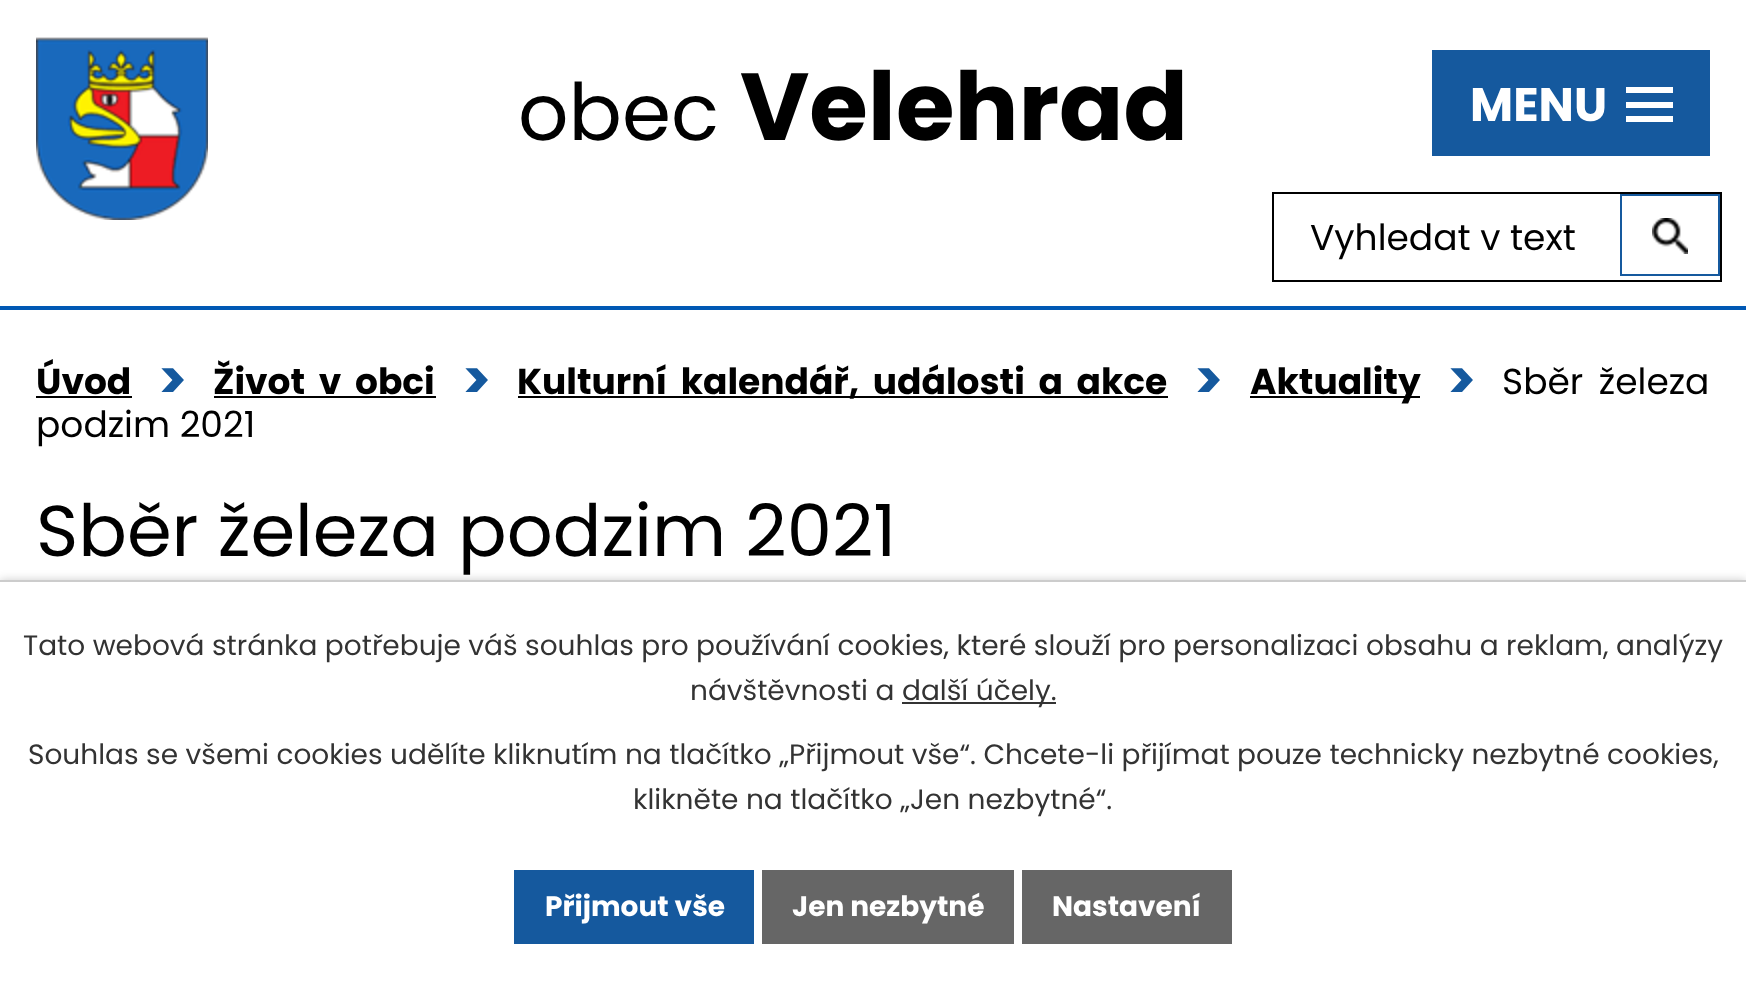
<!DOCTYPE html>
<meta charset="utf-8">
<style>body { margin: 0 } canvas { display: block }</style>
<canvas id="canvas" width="1746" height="991"></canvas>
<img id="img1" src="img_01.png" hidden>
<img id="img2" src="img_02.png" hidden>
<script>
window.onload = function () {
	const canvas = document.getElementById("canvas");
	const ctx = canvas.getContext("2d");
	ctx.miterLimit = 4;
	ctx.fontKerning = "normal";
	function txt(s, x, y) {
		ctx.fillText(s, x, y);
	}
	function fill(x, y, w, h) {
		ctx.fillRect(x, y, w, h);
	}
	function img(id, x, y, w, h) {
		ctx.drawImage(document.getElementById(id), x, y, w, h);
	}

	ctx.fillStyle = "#FFFFFF";
	fill(0, 0, 1746, 991);
	ctx.fillStyle = "#0058B4";
	fill(0, 306, 1746, 4);
	img("img1", 36, 37, 172, 183);
	ctx.strokeStyle = "#000000";
	ctx.lineWidth = 2;
	ctx.strokeRect(1273, 193, 448, 88);
	img("img2", 1652, 218, 36, 36);
	ctx.strokeStyle = "#15599E";
	ctx.strokeRect(1621, 195, 98, 80);
	ctx.fillStyle = "#15599E";
	fill(1432, 50, 278, 106);
	ctx.fillStyle = "#FFFFFF";
	ctx.beginPath();
	ctx.moveTo(1626, 122);
	ctx.lineTo(1626, 116);
	ctx.lineTo(1673, 116);
	ctx.lineTo(1673, 122);
	ctx.closePath();
	ctx.moveTo(1626, 87);
	ctx.lineTo(1673, 87);
	ctx.lineTo(1673, 93);
	ctx.lineTo(1626, 93);
	ctx.closePath();
	ctx.moveTo(1626, 108);
	ctx.lineTo(1626, 102);
	ctx.lineTo(1673, 102);
	ctx.lineTo(1673, 108);
	ctx.closePath();
	ctx.fill();
	ctx.fillStyle = "#000000";
	fill(36, 396, 96, 2);
	fill(214, 396, 222, 2);
	fill(518, 396, 650, 2);
	fill(1250, 396, 170, 2);
	ctx.fillStyle = "rgba(0, 0, 0, 0.2)";
	ctx.filter = "blur(5px)";
	ctx.beginPath();
	ctx.rect(0, 580, 1746, 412);
	ctx.fill();
	ctx.filter = "none";
	ctx.fillStyle = "#FFFFFF";
	fill(0, 582, 1746, 409);
	ctx.fillStyle = "#CCCCCC";
	fill(0, 580, 1746, 2);
	ctx.fillStyle = "#333333";
	fill(902, 702, 154, 2);
	ctx.fillStyle = "#15599E";
	fill(514, 870, 240, 74);
	ctx.fillStyle = "#666666";
	fill(762, 870, 252, 74);
	fill(1022, 870, 210, 74);
	ctx.font = "79px Poppins";
	ctx.fillStyle = "#000000";
	txt("obec", 518, 140);
	ctx.font = "bold 95px Poppins";
	txt("Velehrad", 740, 140);
	ctx.font = "36px Poppins";
	txt("Vyhledat v text", 1310, 250);
	ctx.font = "bold 47px Poppins";
	ctx.fillStyle = "#FFFFFF";
	txt("MENU", 1470, 121);
	ctx.font = "bold 36px Poppins";
	ctx.fillStyle = "#000000";
	txt("Úvod", 36, 394);
	ctx.font = "bold 54px Poppins";
	ctx.fillStyle = "#15599E";
	txt(">", 158, 399);
	ctx.wordSpacing = "6px";
	ctx.font = "bold 36px Poppins";
	ctx.fillStyle = "#000000";
	txt("Život v obci", 213, 394);
	ctx.wordSpacing = "0px";
	ctx.font = "bold 54px Poppins";
	ctx.fillStyle = "#15599E";
	txt(">", 462, 399);
	ctx.wordSpacing = "6px";
	ctx.font = "bold 36px Poppins";
	ctx.fillStyle = "#000000";
	txt("Kulturní kalendář, události a akce", 517, 394);
	ctx.wordSpacing = "0px";
	ctx.font = "bold 54px Poppins";
	ctx.fillStyle = "#15599E";
	txt(">", 1194, 399);
	ctx.font = "bold 36px Poppins";
	ctx.fillStyle = "#000000";
	txt("Aktuality", 1250, 394);
	ctx.font = "bold 54px Poppins";
	ctx.fillStyle = "#15599E";
	txt(">", 1447, 399);
	ctx.wordSpacing = "6px";
	ctx.font = "36px Poppins";
	ctx.fillStyle = "#000000";
	txt("Sběr železa", 1502, 394);
	ctx.wordSpacing = "0px";
	txt("podzim 2021", 36, 437);
	ctx.font = "72px Poppins";
	txt("Sběr železa podzim 2021", 36, 556);
	ctx.font = "28px Poppins";
	ctx.fillStyle = "#333333";
	txt("Tato webová stránka potřebuje váš souhlas pro používání cookies, které slouží pro personalizaci obsahu a reklam, analýzy", 23, 655);
	txt("návštěvnosti a", 690, 700);
	txt("další účely.", 902, 700);
	txt("Souhlas se všemi cookies udělíte kliknutím na tlačítko „Přijmout vše“. Chcete-li přijímat pouze technicky nezbytné cookies,", 28, 764);
	txt("klikněte na tlačítko „Jen nezbytné“.", 633, 809);
	ctx.font = "bold 28px Poppins";
	ctx.fillStyle = "#FFFFFF";
	txt("Přijmout vše", 545, 916);
	txt("Jen nezbytné", 792, 916);
	txt("Nastavení", 1052, 916);
};
</script>
